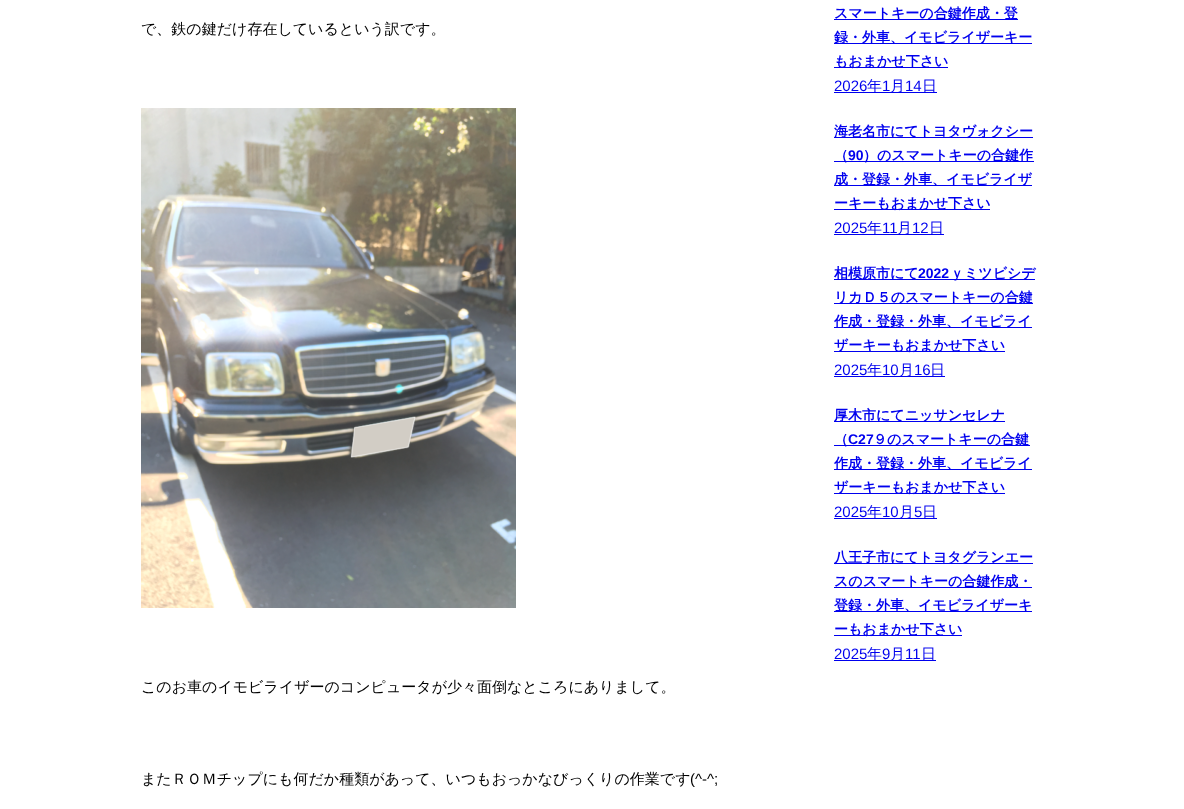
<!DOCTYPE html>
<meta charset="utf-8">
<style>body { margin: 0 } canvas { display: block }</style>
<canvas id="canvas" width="1184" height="809"></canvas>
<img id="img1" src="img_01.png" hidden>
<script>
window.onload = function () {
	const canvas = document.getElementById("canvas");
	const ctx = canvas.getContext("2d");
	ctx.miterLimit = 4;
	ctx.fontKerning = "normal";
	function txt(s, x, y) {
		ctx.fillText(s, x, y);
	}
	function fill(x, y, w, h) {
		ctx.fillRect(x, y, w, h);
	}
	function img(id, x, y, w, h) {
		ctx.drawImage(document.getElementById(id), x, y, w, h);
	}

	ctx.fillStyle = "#FFFFFF";
	fill(0, 0, 1184, 809);
	img("img1", 141, 108, 375, 500);
	ctx.fillStyle = "#0000EE";
	fill(834, 19, 184, 1);
	fill(834, 43, 198, 1);
	fill(834, 67, 114, 1);
	fill(834, 92, 103, 1);
	fill(834, 137, 199, 1);
	fill(834, 161, 200, 1);
	fill(834, 185, 198, 1);
	fill(834, 209, 156, 1);
	fill(834, 234, 110, 1);
	fill(834, 279, 201, 1);
	fill(834, 303, 199, 1);
	fill(834, 327, 198, 1);
	fill(834, 351, 171, 1);
	fill(834, 376, 111, 1);
	fill(834, 421, 171, 1);
	fill(834, 445, 196, 1);
	fill(834, 469, 198, 1);
	fill(834, 493, 171, 1);
	fill(834, 518, 103, 1);
	fill(834, 563, 199, 1);
	fill(834, 587, 198, 1);
	fill(834, 611, 198, 1);
	fill(834, 635, 128, 1);
	fill(834, 660, 102, 1);
	ctx.font = "500 15px WenQuanYi Zen Hei";
	ctx.fillStyle = "#000000";
	txt("で、鉄の鍵だけ存在しているという訳です。", 141, 34);
	txt("このお車のイモビライザーのコンピュータが少々面倒なところにありまして。", 141, 692);
	txt("またＲＯＭチップにも何だか種類があって、いつもおっかなびっくりの作業です", 141, 784);
	ctx.font = "15px Liberation Sans";
	txt("(^-^;", 690, 784);
	ctx.font = "bold 14px WenQuanYi Zen Hei";
	ctx.fillStyle = "#0000EE";
	txt("スマートキーの合鍵作成・登", 834, 18);
	txt("録・外車、イモビライザーキー", 834, 42);
	txt("もおまかせ下さい", 834, 66);
	ctx.font = "15px Liberation Sans";
	txt("2026", 834, 91);
	ctx.font = "500 15px WenQuanYi Zen Hei";
	txt("年", 867, 91);
	ctx.font = "15px Liberation Sans";
	txt("1", 882, 91);
	ctx.font = "500 15px WenQuanYi Zen Hei";
	txt("月", 890, 91);
	ctx.font = "15px Liberation Sans";
	txt("14", 905, 91);
	ctx.font = "500 15px WenQuanYi Zen Hei";
	txt("日", 922, 91);
	ctx.font = "bold 14px WenQuanYi Zen Hei";
	txt("海老名市にてトヨタヴォクシー", 834, 136);
	txt("（", 834, 160);
	ctx.font = "bold 14px Liberation Sans";
	txt("90", 848, 160);
	ctx.font = "bold 14px WenQuanYi Zen Hei";
	txt("）のスマートキーの合鍵作", 863, 160);
	txt("成・登録・外車、イモビライザ", 834, 184);
	txt("ーキーもおまかせ下さい", 834, 208);
	ctx.font = "15px Liberation Sans";
	txt("2025", 834, 233);
	ctx.font = "500 15px WenQuanYi Zen Hei";
	txt("年", 867, 233);
	ctx.font = "15px Liberation Sans";
	txt("11", 882, 233);
	ctx.font = "500 15px WenQuanYi Zen Hei";
	txt("月", 897, 233);
	ctx.font = "15px Liberation Sans";
	txt("12", 912, 233);
	ctx.font = "500 15px WenQuanYi Zen Hei";
	txt("日", 929, 233);
	ctx.font = "bold 14px WenQuanYi Zen Hei";
	txt("相模原市にて", 834, 278);
	ctx.font = "bold 14px Liberation Sans";
	txt("2022", 918, 278);
	ctx.font = "bold 14px WenQuanYi Zen Hei";
	txt("ｙミツビシデ", 950, 278);
	txt("リカＤ５のスマートキーの合鍵", 834, 302);
	txt("作成・登録・外車、イモビライ", 834, 326);
	txt("ザーキーもおまかせ下さい", 834, 350);
	ctx.font = "15px Liberation Sans";
	txt("2025", 834, 375);
	ctx.font = "500 15px WenQuanYi Zen Hei";
	txt("年", 867, 375);
	ctx.font = "15px Liberation Sans";
	txt("10", 882, 375);
	ctx.font = "500 15px WenQuanYi Zen Hei";
	txt("月", 899, 375);
	ctx.font = "15px Liberation Sans";
	txt("16", 914, 375);
	ctx.font = "500 15px WenQuanYi Zen Hei";
	txt("日", 930, 375);
	ctx.font = "bold 14px WenQuanYi Zen Hei";
	txt("厚木市にてニッサンセレナ", 834, 420);
	txt("（", 834, 444);
	ctx.font = "bold 14px Liberation Sans";
	txt("C27", 848, 444);
	ctx.font = "bold 14px WenQuanYi Zen Hei";
	txt("９のスマートキーの合鍵", 873, 444);
	txt("作成・登録・外車、イモビライ", 834, 468);
	txt("ザーキーもおまかせ下さい", 834, 492);
	ctx.font = "15px Liberation Sans";
	txt("2025", 834, 517);
	ctx.font = "500 15px WenQuanYi Zen Hei";
	txt("年", 867, 517);
	ctx.font = "15px Liberation Sans";
	txt("10", 882, 517);
	ctx.font = "500 15px WenQuanYi Zen Hei";
	txt("月", 899, 517);
	ctx.font = "15px Liberation Sans";
	txt("5", 914, 517);
	ctx.font = "500 15px WenQuanYi Zen Hei";
	txt("日", 922, 517);
	ctx.font = "bold 14px WenQuanYi Zen Hei";
	txt("八王子市にてトヨタグランエー", 834, 562);
	txt("スのスマートキーの合鍵作成・", 834, 586);
	txt("登録・外車、イモビライザーキ", 834, 610);
	txt("ーもおまかせ下さい", 834, 634);
	ctx.font = "15px Liberation Sans";
	txt("2025", 834, 659);
	ctx.font = "500 15px WenQuanYi Zen Hei";
	txt("年", 867, 659);
	ctx.font = "15px Liberation Sans";
	txt("9", 882, 659);
	ctx.font = "500 15px WenQuanYi Zen Hei";
	txt("月", 890, 659);
	ctx.font = "15px Liberation Sans";
	txt("11", 905, 659);
	ctx.font = "500 15px WenQuanYi Zen Hei";
	txt("日", 921, 659);
};
</script>
